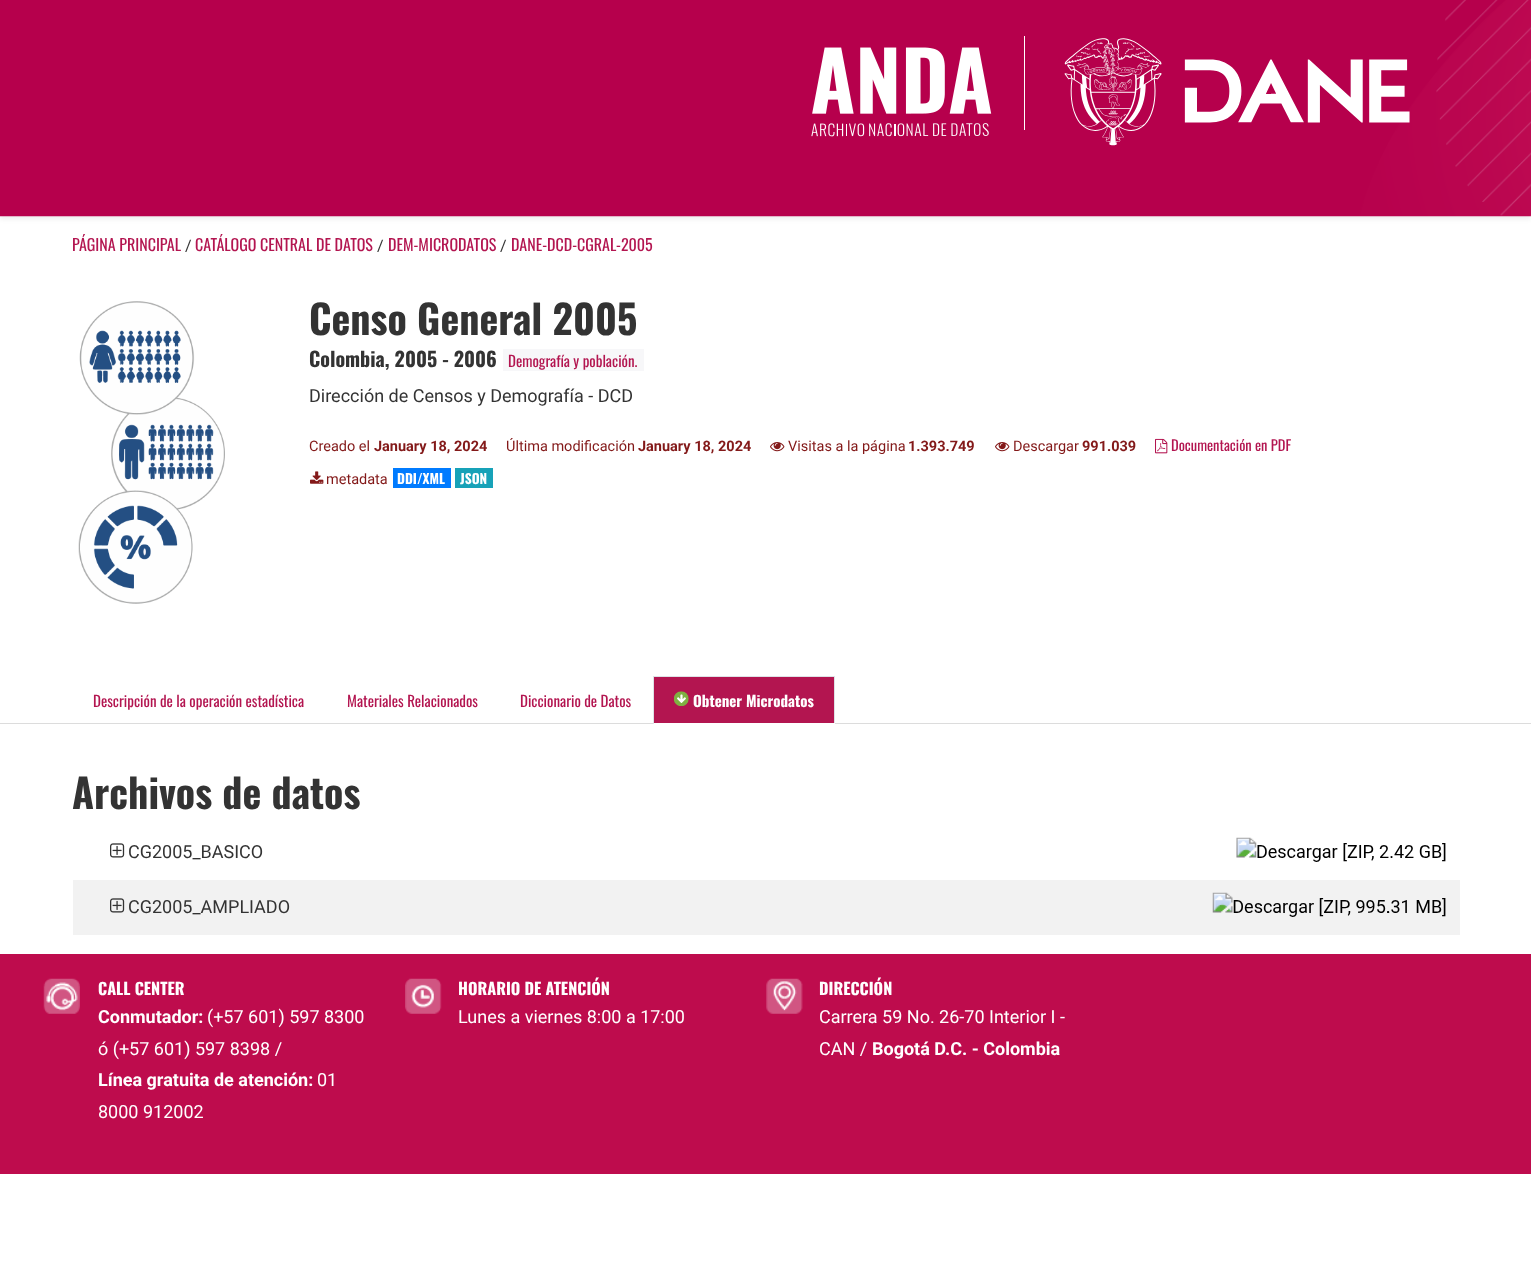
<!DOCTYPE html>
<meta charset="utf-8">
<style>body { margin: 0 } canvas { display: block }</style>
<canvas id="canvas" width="1531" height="1269"></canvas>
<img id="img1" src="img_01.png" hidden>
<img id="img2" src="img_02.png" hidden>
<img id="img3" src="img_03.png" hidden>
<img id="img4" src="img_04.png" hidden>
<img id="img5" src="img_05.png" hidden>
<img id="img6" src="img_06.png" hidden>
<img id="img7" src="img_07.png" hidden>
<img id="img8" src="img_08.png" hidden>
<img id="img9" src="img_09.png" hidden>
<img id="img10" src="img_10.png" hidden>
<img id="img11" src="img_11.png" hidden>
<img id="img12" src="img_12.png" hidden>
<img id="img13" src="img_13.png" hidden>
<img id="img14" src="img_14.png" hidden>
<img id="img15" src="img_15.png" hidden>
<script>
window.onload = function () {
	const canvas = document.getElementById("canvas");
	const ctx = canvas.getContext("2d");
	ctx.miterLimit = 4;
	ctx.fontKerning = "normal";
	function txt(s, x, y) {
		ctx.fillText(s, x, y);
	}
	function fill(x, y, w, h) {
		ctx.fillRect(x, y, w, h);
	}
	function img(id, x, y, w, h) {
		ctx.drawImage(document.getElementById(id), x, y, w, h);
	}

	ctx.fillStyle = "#FFFFFF";
	fill(0, 0, 1531, 1269);
	ctx.fillStyle = "rgba(0, 0, 0, 0.07)";
	ctx.filter = "blur(2.5px)";
	ctx.beginPath();
	ctx.rect(0, -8, 1531, 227);
	ctx.fill();
	ctx.filter = "none";
	img("img1", 0, 0, 1531, 217);
	img("img2", 811, 47, 181, 90);
	ctx.fillStyle = "#FFFFFF";
	fill(1024, 36, 1, 94);
	img("img3", 1064, 38, 346, 108);
	ctx.fillStyle = "#DCDCDC";
	fill(0, 723, 1531, 1);
	img("img4", 78, 301, 147, 303);
	ctx.fillStyle = "#F7F7F9";
	fill(503, 349, 141, 22);
	img("img5", 770, 442, 15, 10);
	img("img5", 995, 442, 15, 10);
	img("img6", 1155, 438, 13, 16);
	img("img7", 310, 471, 14, 13);
	ctx.fillStyle = "#007BFF";
	fill(393, 468, 58, 20);
	ctx.fillStyle = "#17A2B8";
	fill(455, 468, 38, 20);
	ctx.fillStyle = "#B31550";
	fill(654, 677, 180, 46);
	ctx.fillStyle = "#DEE2E6";
	fill(653, 676, 182, 1);
	fill(834, 676, 1, 48);
	ctx.fillStyle = "#FFFFFF";
	fill(653, 723, 182, 1);
	ctx.fillStyle = "#DEE2E6";
	fill(653, 676, 1, 48);
	img("img8", 674, 691, 15, 15);
	img("img9", 110, 843, 15, 15);
	img("img10", 1236, 837, 210, 25);
	ctx.fillStyle = "#F2F2F2";
	fill(73, 880, 1387, 55);
	img("img11", 110, 898, 15, 15);
	img("img12", 1212, 892, 234, 25);
	ctx.fillStyle = "#BE0C4D";
	fill(0, 954, 1531, 220);
	img("img13", 43, 978, 37, 36);
	img("img14", 405, 978, 37, 36);
	img("img15", 766, 978, 37, 36);
	ctx.font = "16px Oswald";
	ctx.fillStyle = "#B31550";
	txt("PÁGINA PRINCIPAL", 72, 251);
	ctx.font = "16px Roboto";
	ctx.fillStyle = "#333333";
	txt("/", 185, 251);
	ctx.font = "16px Oswald";
	ctx.fillStyle = "#B31550";
	txt("CATÁLOGO CENTRAL DE DATOS", 195, 251);
	ctx.font = "16px Roboto";
	ctx.fillStyle = "#333333";
	txt("/", 377, 251);
	ctx.font = "16px Oswald";
	ctx.fillStyle = "#B31550";
	txt("DEM-MICRODATOS", 388, 251);
	ctx.font = "16px Roboto";
	ctx.fillStyle = "#333333";
	txt("/", 500, 251);
	ctx.font = "16px Oswald";
	ctx.fillStyle = "#B31550";
	txt("DANE-DCD-CGRAL-2005", 511, 251);
	ctx.font = "bold 40px Oswald";
	ctx.fillStyle = "#333333";
	txt("Censo General 2005", 309, 335);
	ctx.font = "bold 20px Oswald";
	txt("Colombia, 2005 - 2006", 309, 367);
	ctx.font = "15px Oswald";
	ctx.fillStyle = "#B31550";
	txt("Demografía y población.", 508, 367);
	ctx.font = "18px Roboto";
	ctx.fillStyle = "#333333";
	txt("Dirección de Censos y Demografía - DCD", 309, 402);
	ctx.font = "14.5px Roboto";
	ctx.fillStyle = "#831919";
	txt("Creado el", 309, 451);
	ctx.font = "bold 14.5px Roboto";
	txt("January 18, 2024", 374, 451);
	ctx.font = "14.5px Roboto";
	txt("Última modificación", 506, 451);
	ctx.font = "bold 14.5px Roboto";
	txt("January 18, 2024", 638, 451);
	ctx.font = "14.5px Roboto";
	txt("Visitas a la página", 788, 451);
	ctx.font = "bold 14.5px Roboto";
	txt("1.393.749", 908, 451);
	ctx.font = "14.5px Roboto";
	txt("Descargar", 1013, 451);
	ctx.font = "bold 14.5px Roboto";
	txt("991.039", 1082, 451);
	ctx.font = "14.5px Oswald";
	ctx.fillStyle = "#B31550";
	txt("Documentación en PDF", 1171, 451);
	ctx.font = "14.5px Roboto";
	ctx.fillStyle = "#831919";
	txt("metadata", 326, 484);
	ctx.font = "bold 13.5px Oswald";
	ctx.fillStyle = "#FFFFFF";
	txt("DDI/XML", 397, 484);
	txt("JSON", 460, 484);
	ctx.font = "15px Oswald";
	ctx.fillStyle = "#B31550";
	txt("Descripción de la operación estadística", 93, 707);
	txt("Materiales Relacionados", 347, 707);
	txt("Diccionario de Datos", 520, 707);
	ctx.font = "bold 15px Oswald";
	ctx.fillStyle = "#FFFFFF";
	txt("Obtener Microdatos", 693, 707);
	ctx.font = "bold 40px Oswald";
	ctx.fillStyle = "#333333";
	txt("Archivos de datos", 72, 809);
	ctx.font = "18px Roboto";
	txt("CG2005_BASICO", 128, 858);
	txt("CG2005_AMPLIADO", 128, 913);
	ctx.fillStyle = "#000000";
	txt(".", 1386, 913);
	ctx.font = "bold 16.25px Oswald";
	ctx.fillStyle = "#FFFFFF";
	txt("CALL CENTER", 98, 995);
	ctx.font = "bold 18px Roboto";
	txt("Conmutador:", 98, 1023);
	ctx.font = "18px Roboto";
	txt("(+57 601) 597 8300", 207, 1023);
	txt("ó (+57 601) 597 8398 /", 98, 1055);
	ctx.font = "bold 18px Roboto";
	txt("Línea gratuita de atención:", 98, 1086);
	ctx.font = "18px Roboto";
	txt("01", 317, 1086);
	txt("8000 912002", 98, 1118);
	ctx.font = "bold 16.25px Oswald";
	txt("HORARIO DE ATENCIÓN", 458, 995);
	ctx.font = "18px Roboto";
	txt("Lunes a viernes 8:00 a 17:00", 458, 1023);
	ctx.font = "bold 16.25px Oswald";
	txt("DIRECCIÓN", 819, 995);
	ctx.font = "18px Roboto";
	txt("Carrera 59 No. 26-70 Interior I -", 819, 1023);
	txt("CAN /", 819, 1055);
	ctx.font = "bold 18px Roboto";
	txt("Bogotá D.C. - Colombia", 872, 1055);
};
</script>
